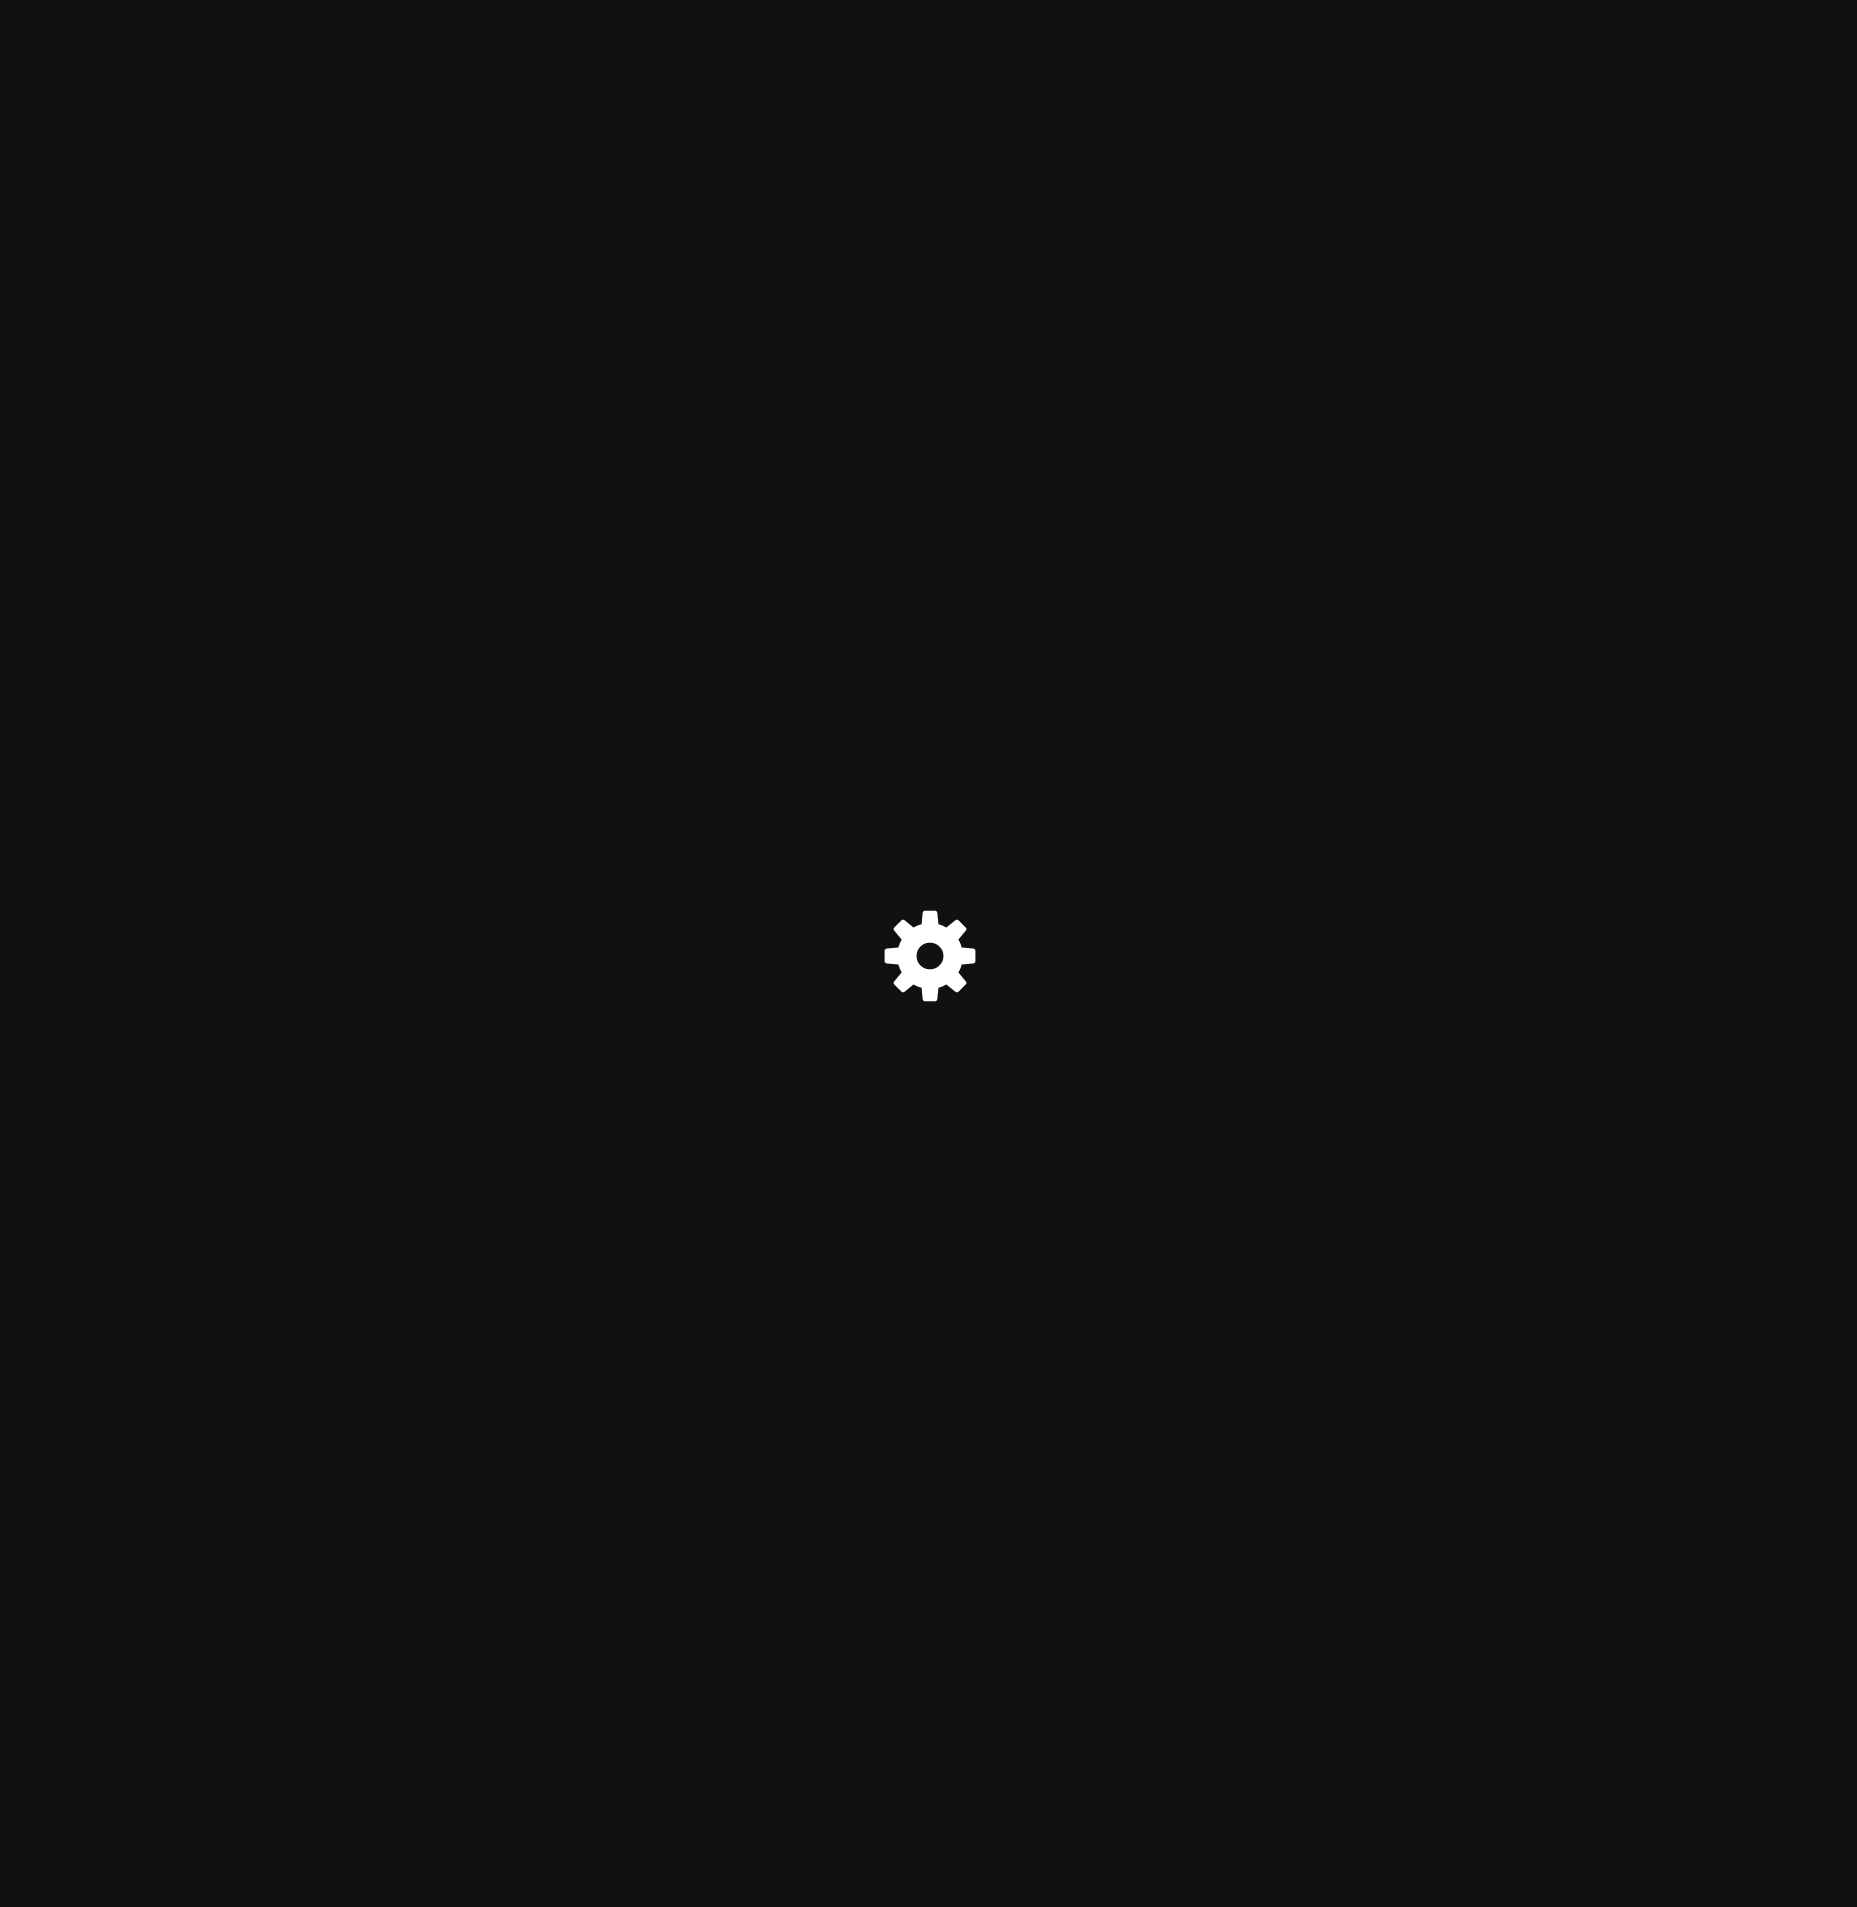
<!DOCTYPE html>
<meta charset="utf-8">
<style>body { margin: 0 } canvas { display: block }</style>
<canvas id="canvas" width="1857" height="1907"></canvas>
<img id="img1" src="img_01.png" hidden>
<script>
window.onload = function () {
	const canvas = document.getElementById("canvas");
	const ctx = canvas.getContext("2d");
	ctx.miterLimit = 4;
	ctx.fontKerning = "normal";
	function fill(x, y, w, h) {
		ctx.fillRect(x, y, w, h);
	}
	function img(id, x, y, w, h) {
		ctx.drawImage(document.getElementById(id), x, y, w, h);
	}

	ctx.fillStyle = "#111111";
	fill(0, 0, 1857, 1907);
	img("img1", 884, 910, 92, 92);
};
</script>
